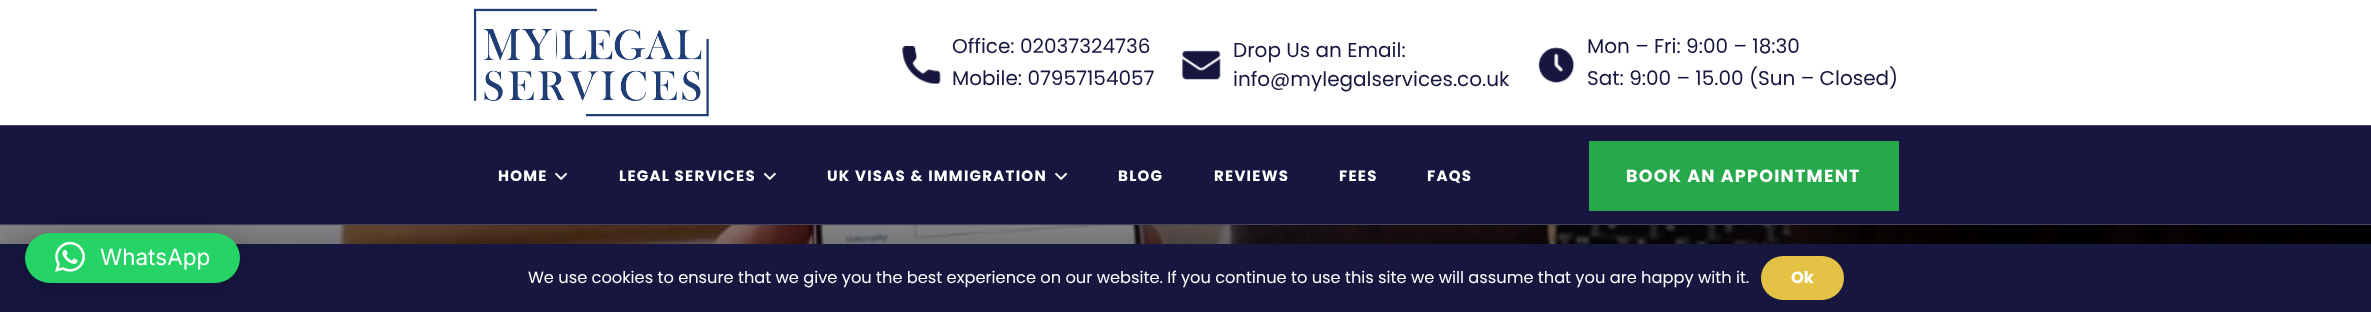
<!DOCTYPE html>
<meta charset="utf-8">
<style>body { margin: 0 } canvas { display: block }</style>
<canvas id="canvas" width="2371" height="312"></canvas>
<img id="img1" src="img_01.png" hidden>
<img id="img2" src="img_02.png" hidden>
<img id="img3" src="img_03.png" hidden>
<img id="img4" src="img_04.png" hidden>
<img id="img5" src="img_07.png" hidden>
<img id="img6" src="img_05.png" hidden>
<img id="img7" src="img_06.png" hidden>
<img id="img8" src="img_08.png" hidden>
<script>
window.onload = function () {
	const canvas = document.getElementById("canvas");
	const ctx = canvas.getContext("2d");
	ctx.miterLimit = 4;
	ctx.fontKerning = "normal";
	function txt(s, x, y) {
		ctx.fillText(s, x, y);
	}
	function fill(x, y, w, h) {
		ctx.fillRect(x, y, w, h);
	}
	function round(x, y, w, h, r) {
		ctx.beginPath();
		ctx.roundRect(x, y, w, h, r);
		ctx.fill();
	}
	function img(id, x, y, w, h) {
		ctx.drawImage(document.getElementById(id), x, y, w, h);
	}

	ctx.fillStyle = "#FFFFFF";
	fill(0, 0, 2371, 312);
	img("img1", 473, 8, 236, 109);
	img("img2", 902, 46, 39, 38);
	img("img3", 1182, 50, 39, 30);
	img("img4", 1538, 47, 37, 36);
	img("img5", 0, 225, 2371, 19);
	ctx.fillStyle = "rgba(0, 0, 0, 0.08)";
	fill(0, 225, 1789, 1);
	ctx.fillStyle = "#16163F";
	fill(0, 126, 2371, 98);
	ctx.fillStyle = "#454565";
	fill(0, 125, 2371, 1);
	fill(0, 224, 2371, 1);
	img("img6", 555, 172, 13, 8);
	img("img7", 763, 172, 13, 8);
	img("img6", 1055, 172, 13, 8);
	ctx.fillStyle = "#28A84D";
	fill(1589, 141, 310, 70);
	ctx.fillStyle = "rgba(0, 0, 0, 0.15)";
	ctx.filter = "blur(9.5px)";
	ctx.beginPath();
	ctx.rect(0, 238, 2371, 68);
	ctx.fill();
	ctx.filter = "none";
	ctx.fillStyle = "#16163F";
	fill(0, 244, 2371, 68);
	ctx.fillStyle = "rgba(0, 0, 0, 0.16)";
	ctx.filter = "blur(20px)";
	ctx.beginPath();
	ctx.roundRect(25, 235, 215, 50, 25);
	ctx.fill();
	ctx.filter = "none";
	ctx.fillStyle = "#25D366";
	round(25, 233, 215, 50, 25);
	img("img8", 55, 241, 30, 31);
	ctx.fillStyle = "#E4C246";
	round(1761, 256, 83, 44, 22);
	ctx.font = "20px Poppins";
	ctx.fillStyle = "#16163F";
	txt("Office: 02037324736", 952, 53);
	txt("Mobile: 07957154057", 952, 85);
	txt("Drop Us an Email:", 1233, 57);
	txt("info@mylegalservices.co.uk", 1233, 86);
	txt("Mon – Fri: 9:00 – 18:30", 1587, 53);
	txt("Sat: 9:00 – 15.00 (Sun – Closed)", 1587, 85);
	ctx.letterSpacing = "1.25px";
	ctx.font = "bold 15px Poppins";
	ctx.fillStyle = "#FFFFFF";
	txt("HOME", 498, 181);
	txt("LEGAL SERVICES", 619, 181);
	txt("UK VISAS & IMMIGRATION", 827, 181);
	txt("BLOG", 1118, 181);
	txt("REVIEWS", 1214, 181);
	txt("FEES", 1339, 181);
	txt("FAQS", 1427, 181);
	ctx.font = "bold 17.5px Poppins";
	txt("BOOK AN APPOINTMENT", 1626, 182);
	ctx.letterSpacing = "0px";
	ctx.font = "22.5px Inter";
	txt("WhatsApp", 100, 265);
	ctx.font = "16.25px Poppins";
	txt("We use cookies to ensure that we give you the best experience on our website. If you continue to use this site we will assume that you are happy with it.", 528, 283);
	ctx.font = "bold 16.25px Poppins";
	txt("Ok", 1791, 283);
};
</script>
